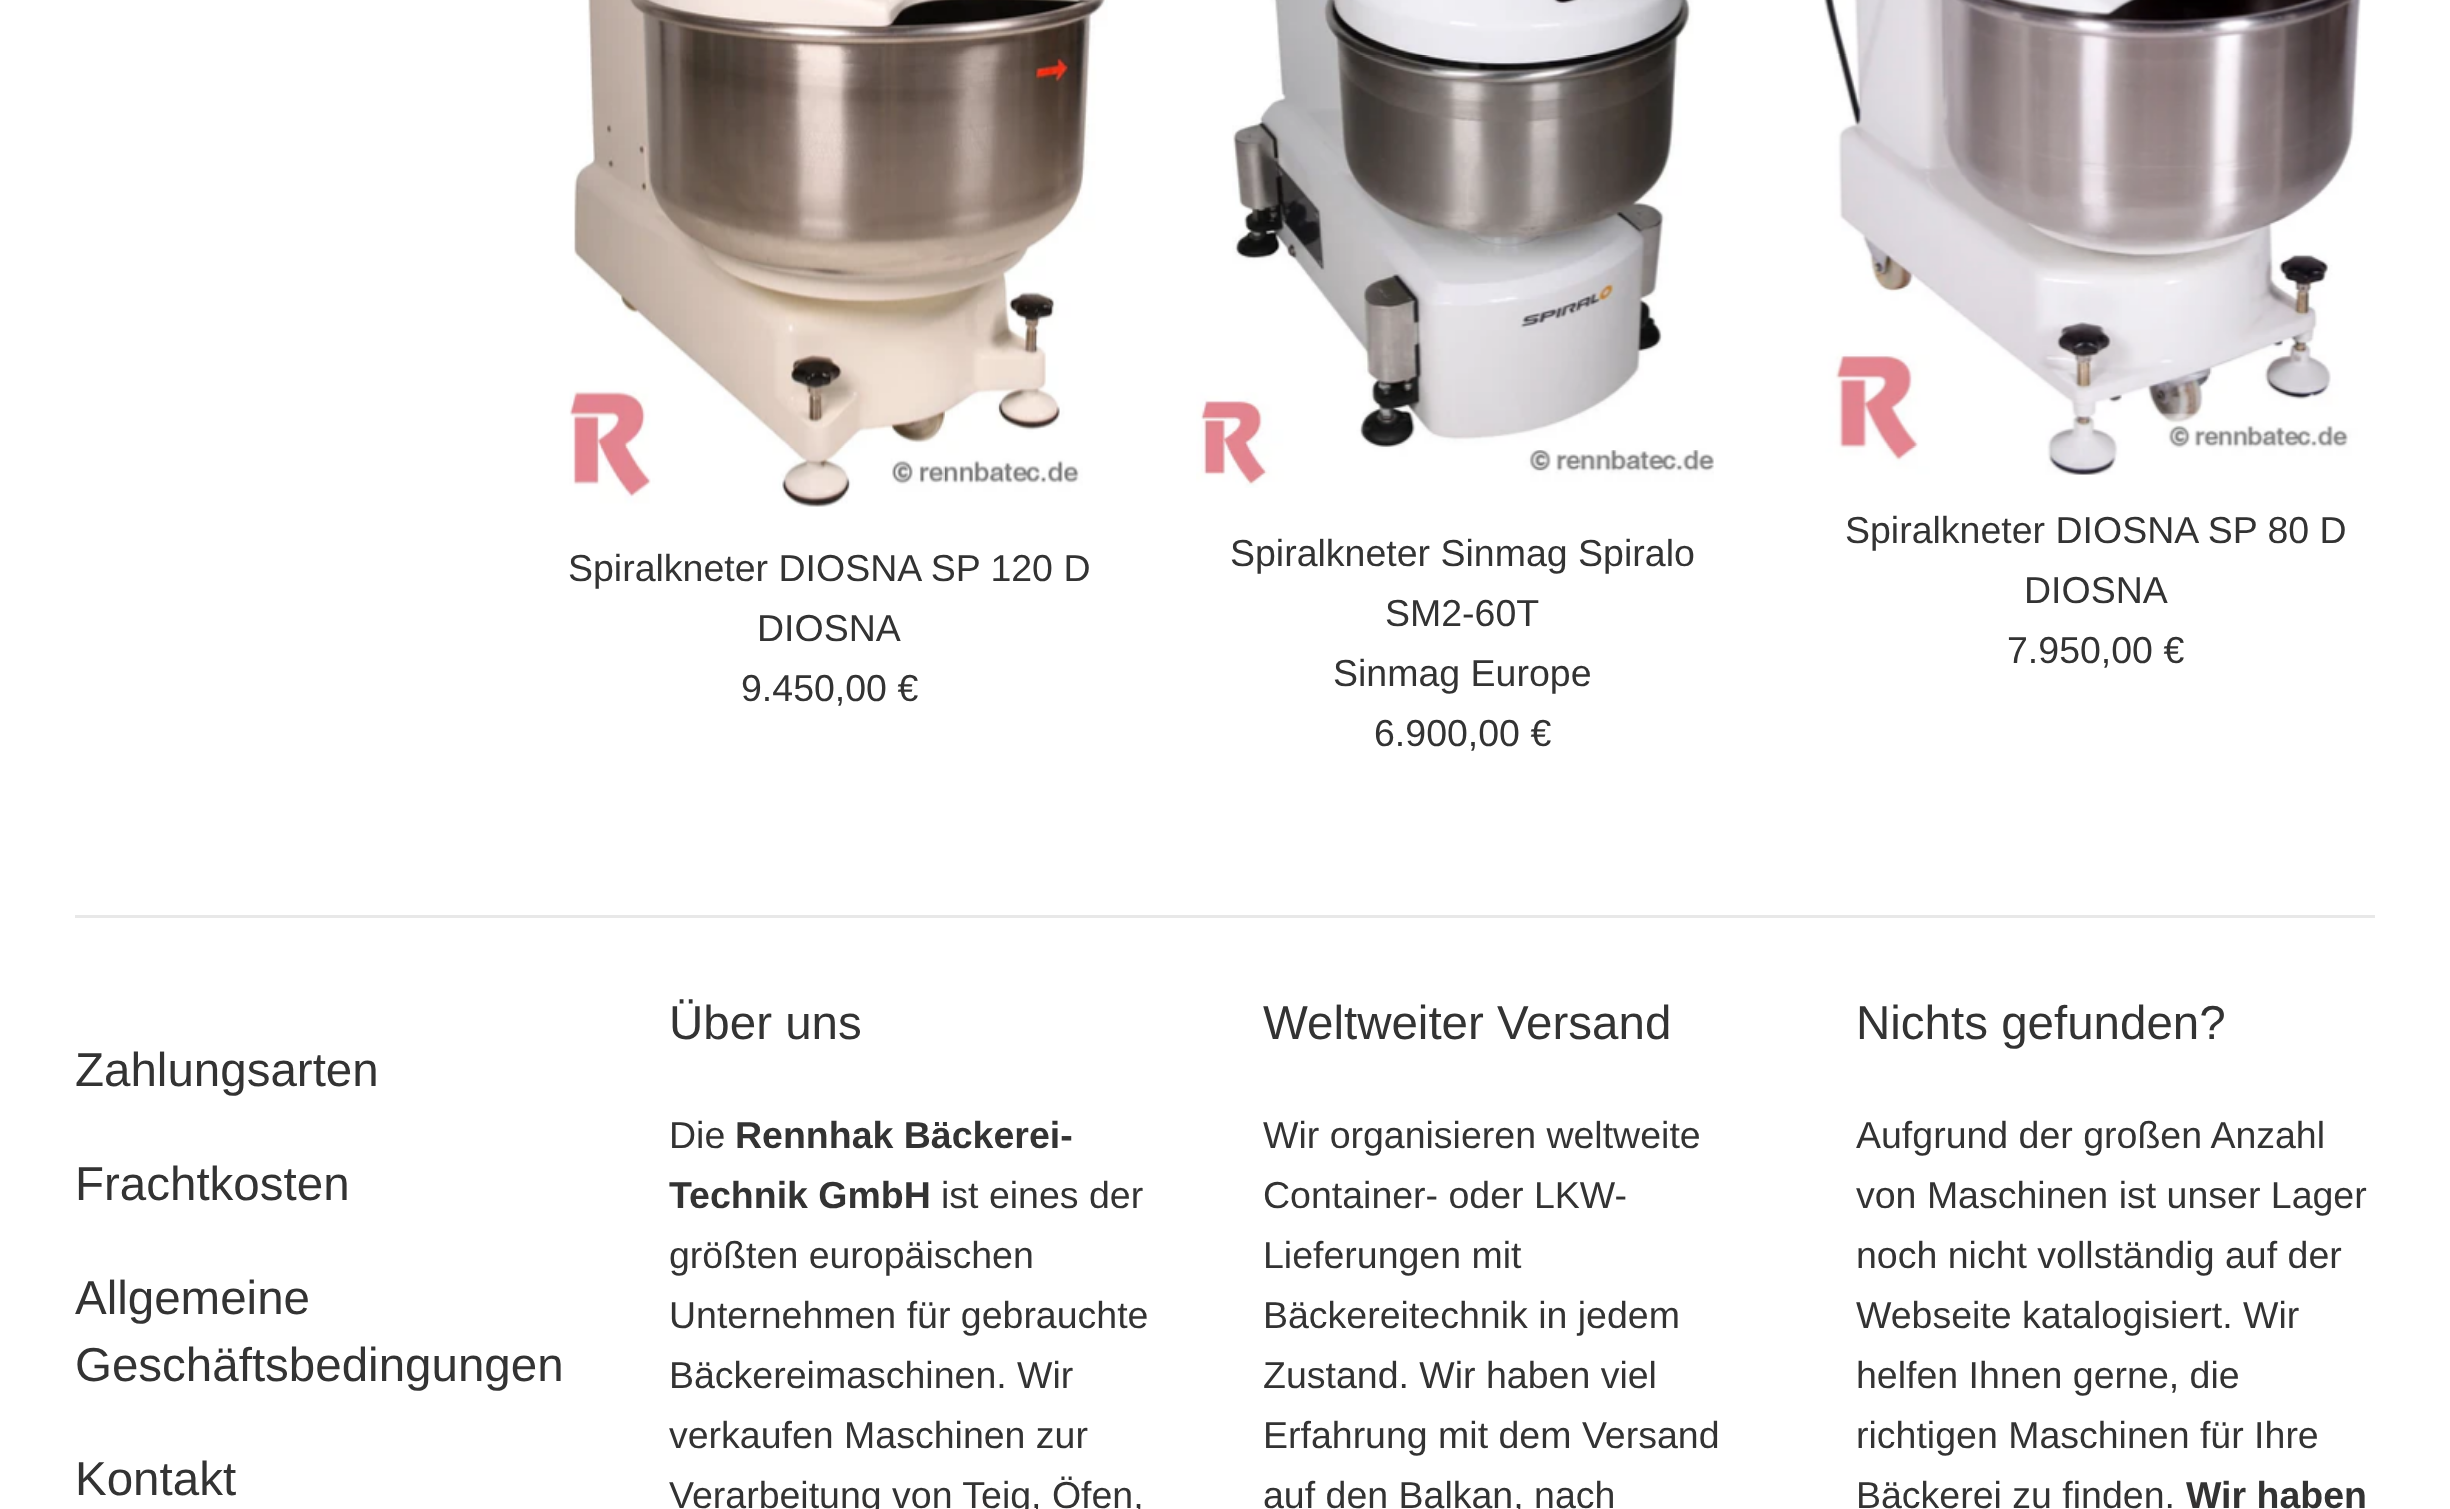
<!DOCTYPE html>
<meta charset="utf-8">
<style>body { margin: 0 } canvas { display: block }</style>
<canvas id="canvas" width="2450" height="1509"></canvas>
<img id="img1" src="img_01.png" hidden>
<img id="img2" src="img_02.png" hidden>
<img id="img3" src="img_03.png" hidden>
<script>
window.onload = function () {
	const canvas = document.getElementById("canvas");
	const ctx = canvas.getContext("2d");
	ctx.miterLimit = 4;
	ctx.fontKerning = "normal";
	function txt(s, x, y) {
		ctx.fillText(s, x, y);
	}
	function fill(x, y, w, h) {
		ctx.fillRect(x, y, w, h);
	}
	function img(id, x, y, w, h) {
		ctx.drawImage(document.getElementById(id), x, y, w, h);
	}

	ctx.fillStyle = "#FFFFFF";
	fill(0, 0, 2450, 1509);
	img("img1", 569, 0, 539, 507);
	img("img2", 1196, 0, 518, 488);
	img("img3", 1824, 0, 537, 475);
	ctx.fillStyle = "#E8E8E8";
	fill(75, 915, 2300, 3);
	ctx.font = "37.5px Liberation Sans";
	ctx.fillStyle = "#333333";
	txt("Spiralkneter DIOSNA SP 120 D", 568, 581);
	txt("DIOSNA", 757, 641);
	txt("9.450,00 €", 741, 701);
	txt("Spiralkneter Sinmag Spiralo", 1230, 566);
	txt("SM2-60T", 1385, 626);
	txt("Sinmag Europe", 1333, 686);
	txt("6.900,00 €", 1374, 746);
	txt("Spiralkneter DIOSNA SP 80 D", 1845, 543);
	txt("DIOSNA", 2024, 603);
	txt("7.950,00 €", 2007, 663);
	ctx.font = "47.5px Liberation Sans";
	txt("Zahlungsarten", 75, 1086);
	txt("Frachtkosten", 75, 1200);
	txt("Allgemeine", 75, 1314);
	txt("Geschäftsbedingungen", 75, 1381);
	txt("Kontakt", 75, 1495);
	txt("Über uns", 669, 1039);
	ctx.font = "37.5px Liberation Sans";
	txt("Die", 669, 1148);
	ctx.font = "bold 37.5px Liberation Sans";
	txt("Rennhak Bäckerei-", 735, 1148);
	txt("Technik GmbH", 669, 1208);
	ctx.font = "37.5px Liberation Sans";
	txt("ist eines der", 941, 1208);
	txt("größten europäischen", 669, 1268);
	txt("Unternehmen für gebrauchte", 669, 1328);
	txt("Bäckereimaschinen. Wir", 669, 1388);
	txt("verkaufen Maschinen zur", 669, 1448);
	txt("Verarbeitung von Teig, Öfen,", 669, 1508);
	ctx.font = "47.5px Liberation Sans";
	txt("Weltweiter Versand", 1263, 1039);
	ctx.font = "37.5px Liberation Sans";
	txt("Wir organisieren weltweite", 1263, 1148);
	txt("Container- oder LKW-", 1263, 1208);
	txt("Lieferungen mit", 1263, 1268);
	txt("Bäckereitechnik in jedem", 1263, 1328);
	txt("Zustand. Wir haben viel", 1263, 1388);
	txt("Erfahrung mit dem Versand", 1263, 1448);
	txt("auf den Balkan, nach", 1263, 1508);
	ctx.font = "47.5px Liberation Sans";
	txt("Nichts gefunden?", 1856, 1039);
	ctx.font = "37.5px Liberation Sans";
	txt("Aufgrund der großen Anzahl", 1856, 1148);
	txt("von Maschinen ist unser Lager", 1856, 1208);
	txt("noch nicht vollständig auf der", 1856, 1268);
	txt("Webseite katalogisiert. Wir", 1856, 1328);
	txt("helfen Ihnen gerne, die", 1856, 1388);
	txt("richtigen Maschinen für Ihre", 1856, 1448);
	txt("Bäckerei zu finden.", 1856, 1508);
	ctx.font = "bold 37.5px Liberation Sans";
	txt("Wir haben", 2186, 1508);
};
</script>
